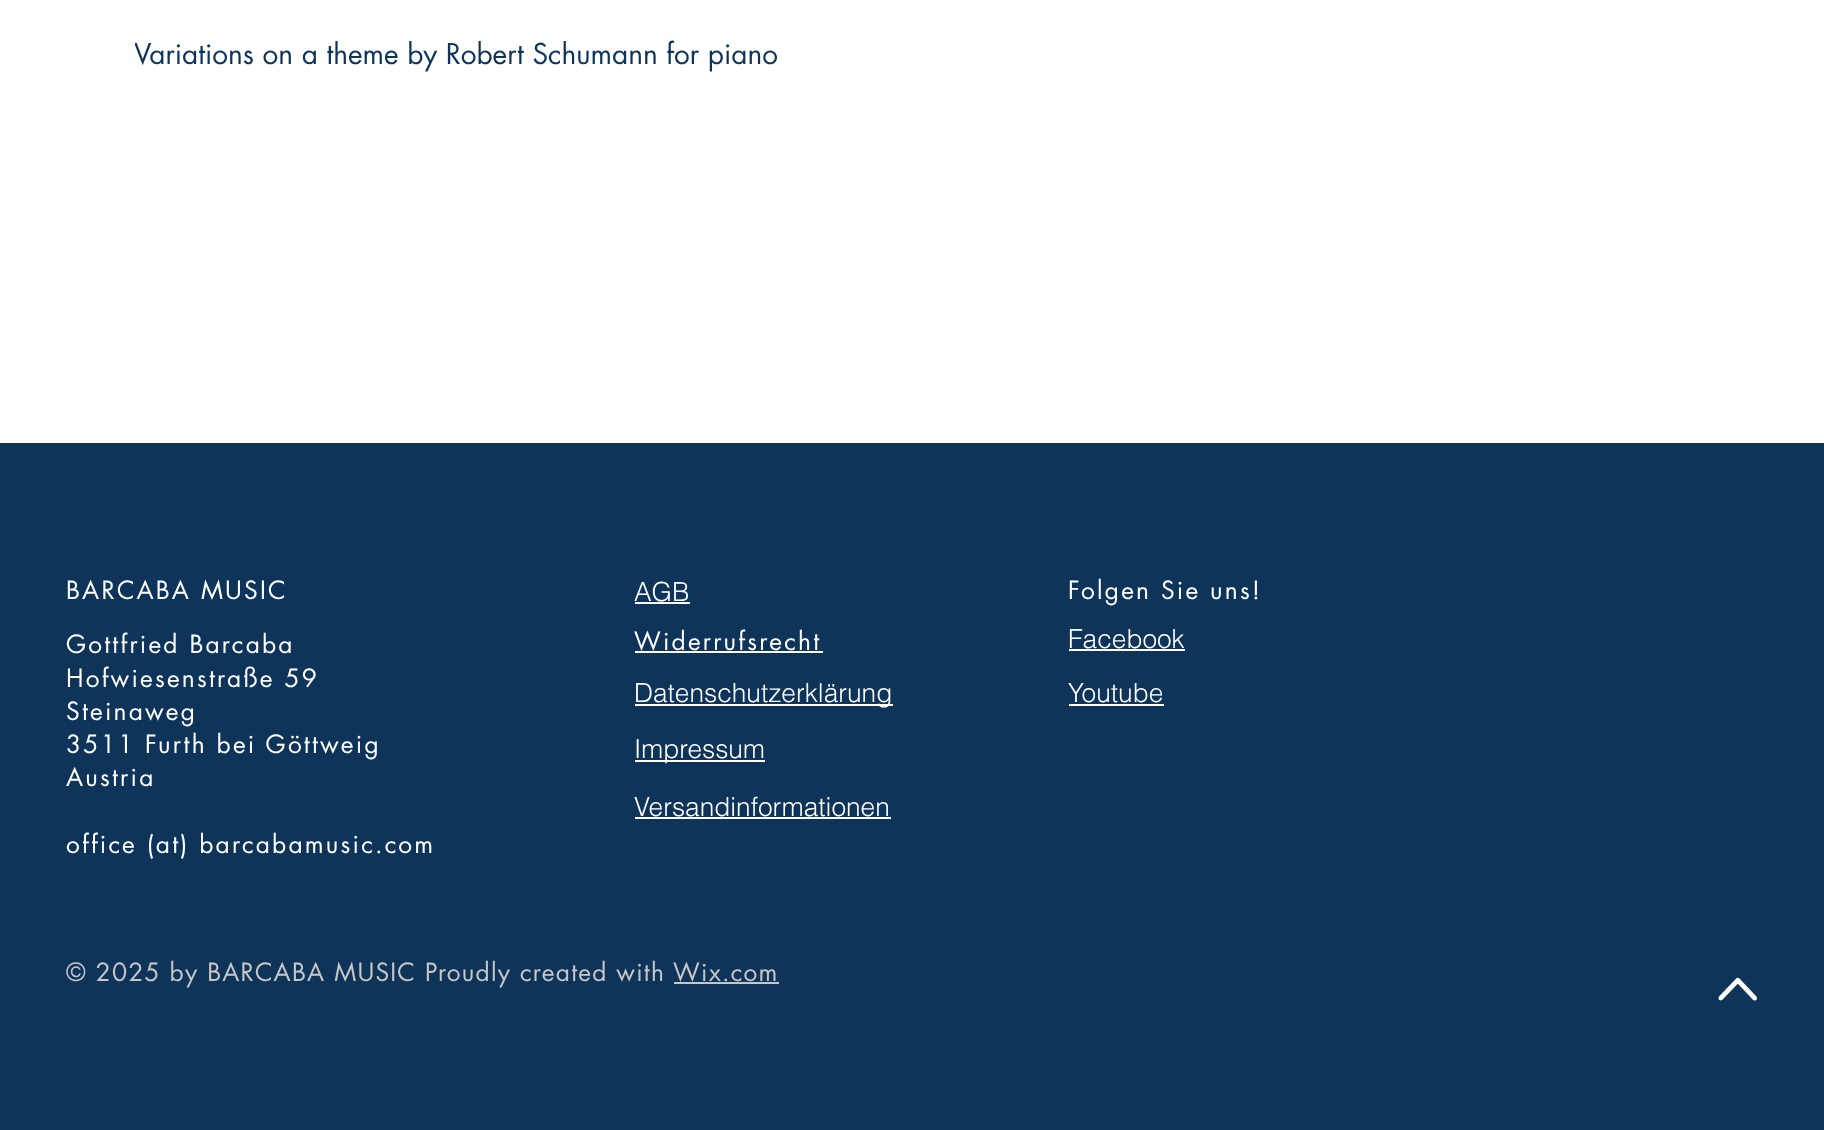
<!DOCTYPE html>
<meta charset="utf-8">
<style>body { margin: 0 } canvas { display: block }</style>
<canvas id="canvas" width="1824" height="1130"></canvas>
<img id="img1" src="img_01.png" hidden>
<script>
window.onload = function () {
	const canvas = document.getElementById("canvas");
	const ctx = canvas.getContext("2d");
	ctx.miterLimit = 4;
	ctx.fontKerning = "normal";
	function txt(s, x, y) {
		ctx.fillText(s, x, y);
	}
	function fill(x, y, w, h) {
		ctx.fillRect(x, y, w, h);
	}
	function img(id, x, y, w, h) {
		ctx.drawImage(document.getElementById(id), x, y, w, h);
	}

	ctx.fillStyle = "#FFFFFF";
	fill(0, 0, 1824, 1130);
	ctx.fillStyle = "#0E345A";
	fill(0, 443, 1824, 687);
	ctx.fillStyle = "#FFFFFF";
	fill(635, 602, 55, 2);
	fill(635, 651, 188, 2);
	fill(1069, 649, 116, 2);
	fill(635, 704, 258, 2);
	fill(1069, 704, 95, 2);
	fill(635, 760, 130, 2);
	fill(635, 817, 256, 2);
	ctx.fillStyle = "#C7C7C7";
	fill(674, 982, 105, 2);
	img("img1", 1718, 977, 39, 24);
	ctx.save();
	ctx.beginPath();
	ctx.rect(135, 33, 642, 42);
	ctx.clip();
	ctx.font = "28px futura";
	ctx.fillStyle = "#0E345A";
	txt("Variations on a theme by Robert Schumann for piano", 134, 64);
	ctx.restore();
	ctx.letterSpacing = "2.2px";
	ctx.font = "24.5px futura";
	ctx.fillStyle = "#FFFFFF";
	txt("BARCABA MUSIC", 66, 599);
	ctx.letterSpacing = "0px";
	ctx.font = "300 26.25px helvetica";
	txt("AGB", 634, 601);
	ctx.letterSpacing = "2.2px";
	ctx.font = "24.5px futura";
	txt("Folgen Sie uns!", 1068, 599);
	txt("Gottfried Barcaba", 66, 653);
	txt("Hofwiesenstraße 59", 66, 687);
	txt("Steinaweg", 66, 720);
	txt("3511 Furth bei Göttweig", 66, 753);
	txt("Austria", 66, 786);
	txt("office (at) barcabamusic.com", 66, 853);
	txt("Widerrufsrecht", 634, 650);
	ctx.letterSpacing = "0px";
	ctx.font = "300 26.25px helvetica";
	txt("Facebook", 1068, 648);
	txt("Datenschutzerklärung", 634, 702);
	txt("Youtube", 1068, 702);
	txt("Impressum", 634, 758);
	txt("Versandinformationen", 634, 816);
	ctx.letterSpacing = "1.22px";
	ctx.font = "24.5px futura";
	ctx.fillStyle = "#C7C7C7";
	txt("© 2025 by BARCABA MUSIC Proudly created with Wix.com", 66, 981);
};
</script>
